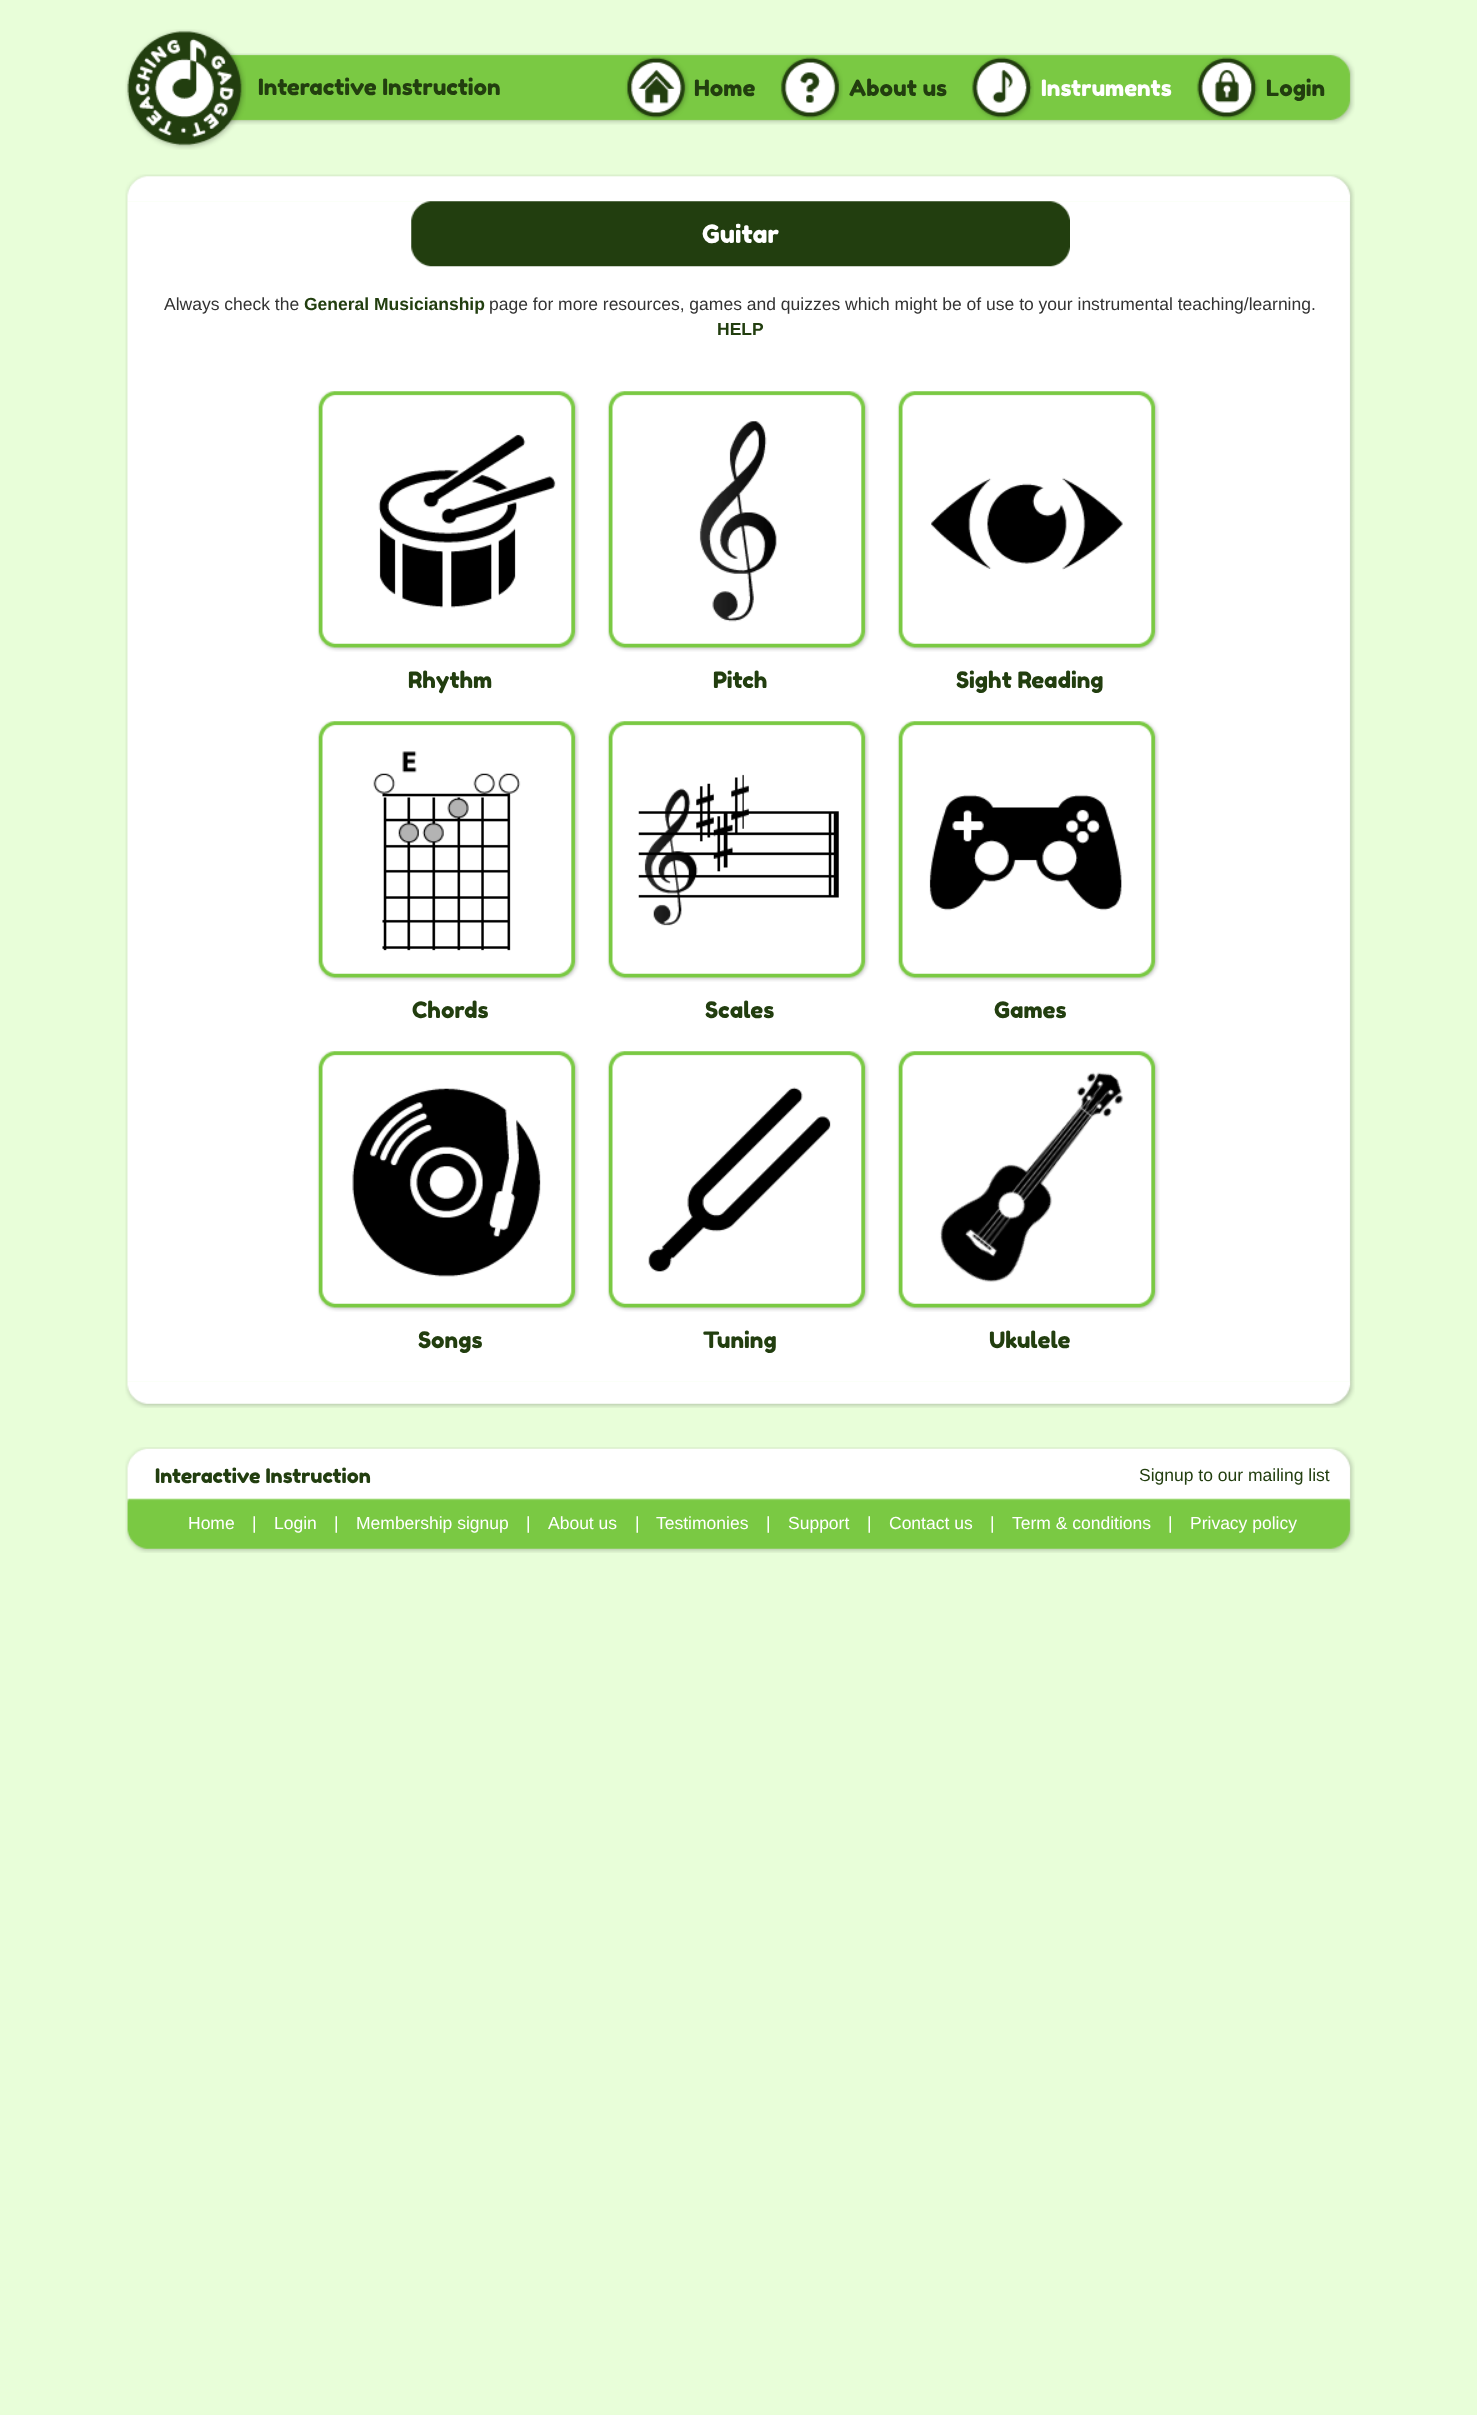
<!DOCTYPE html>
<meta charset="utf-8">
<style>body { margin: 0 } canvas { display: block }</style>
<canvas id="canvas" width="1477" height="2415"></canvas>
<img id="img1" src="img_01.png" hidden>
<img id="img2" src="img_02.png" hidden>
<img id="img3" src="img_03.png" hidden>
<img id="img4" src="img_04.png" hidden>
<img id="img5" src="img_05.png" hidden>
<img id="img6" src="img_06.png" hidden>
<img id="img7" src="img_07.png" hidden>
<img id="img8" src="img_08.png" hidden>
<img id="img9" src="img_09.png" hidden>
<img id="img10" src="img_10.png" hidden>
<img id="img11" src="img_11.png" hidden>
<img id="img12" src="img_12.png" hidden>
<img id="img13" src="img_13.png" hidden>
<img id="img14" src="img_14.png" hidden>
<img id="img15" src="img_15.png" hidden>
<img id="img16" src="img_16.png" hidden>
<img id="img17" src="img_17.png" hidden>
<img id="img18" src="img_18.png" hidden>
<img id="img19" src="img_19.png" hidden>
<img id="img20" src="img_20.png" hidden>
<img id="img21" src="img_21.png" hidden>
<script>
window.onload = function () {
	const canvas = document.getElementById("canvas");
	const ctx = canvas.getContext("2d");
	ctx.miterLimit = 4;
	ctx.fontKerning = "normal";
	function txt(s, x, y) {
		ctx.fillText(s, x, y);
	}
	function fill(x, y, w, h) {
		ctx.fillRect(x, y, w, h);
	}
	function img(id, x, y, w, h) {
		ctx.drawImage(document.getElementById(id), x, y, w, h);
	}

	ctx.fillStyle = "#E8FED9";
	fill(0, 0, 1477, 2415);
	img("img1", 226, 53, 1129, 72);
	img("img2", 125, 29, 121, 121);
	img("img3", 625, 56, 64, 64);
	img("img4", 780, 56, 63, 64);
	img("img5", 971, 56, 63, 64);
	img("img6", 1196, 56, 64, 64);
	img("img7", 125, 174, 1230, 28);
	img("img8", 125, 201, 1230, 1181);
	img("img9", 411, 201, 659, 66);
	img("img10", 317, 391, 262, 261);
	img("img11", 607, 391, 262, 261);
	img("img12", 897, 391, 262, 261);
	img("img13", 317, 721, 262, 261);
	img("img14", 607, 721, 262, 261);
	img("img15", 897, 721, 262, 261);
	img("img16", 317, 1051, 262, 261);
	img("img17", 607, 1051, 262, 261);
	img("img18", 897, 1051, 263, 261);
	img("img19", 125, 1381, 1230, 27);
	img("img20", 125, 1447, 1230, 52);
	img("img21", 125, 1498, 1230, 55);
	ctx.font = "22.5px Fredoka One";
	ctx.fillStyle = "#223E0F";
	txt("Interactive Instruction", 258, 95);
	txt("Home", 694, 96);
	txt("About us", 849, 96);
	ctx.fillStyle = "#FFFFFF";
	txt("Instruments", 1041, 96);
	ctx.fillStyle = "#223E0F";
	txt("Login", 1266, 96);
	ctx.font = "25px Fredoka One";
	ctx.fillStyle = "#FFFFFF";
	txt("Guitar", 702, 243);
	ctx.font = "17.5px Liberation Sans";
	ctx.fillStyle = "#333333";
	txt("Always check the", 164, 310);
	ctx.font = "bold 17.5px Liberation Sans";
	ctx.fillStyle = "#223E0F";
	txt("General Musicianship", 304, 310);
	ctx.font = "17.5px Liberation Sans";
	ctx.fillStyle = "#333333";
	txt("page for more resources, games and quizzes which might be of use to your instrumental teaching/learning.", 489, 310);
	ctx.font = "bold 17.5px Liberation Sans";
	ctx.fillStyle = "#223E0F";
	txt("HELP", 717, 335);
	ctx.font = "22.5px Fredoka One";
	txt("Rhythm", 408, 688);
	txt("Pitch", 713, 688);
	txt("Sight Reading", 956, 688);
	txt("Chords", 412, 1018);
	txt("Scales", 705, 1018);
	txt("Games", 994, 1018);
	txt("Songs", 418, 1348);
	txt("Tuning", 703, 1348);
	txt("Ukulele", 989, 1348);
	ctx.font = "20px Fredoka One";
	txt("Interactive Instruction", 155, 1483);
	ctx.font = "17.5px Liberation Sans";
	txt("Signup to our mailing list", 1139, 1481);
	ctx.fillStyle = "#FFFFFF";
	txt("Home", 188, 1529);
	txt("|", 252, 1529);
	txt("Login", 274, 1529);
	txt("|", 334, 1529);
	txt("Membership signup", 356, 1529);
	txt("|", 526, 1529);
	txt("About us", 548, 1529);
	txt("|", 635, 1529);
	txt("Testimonies", 656, 1529);
	txt("|", 766, 1529);
	txt("Support", 788, 1529);
	txt("|", 867, 1529);
	txt("Contact us", 889, 1529);
	txt("|", 990, 1529);
	txt("Term & conditions", 1012, 1529);
	txt("|", 1168, 1529);
	txt("Privacy policy", 1190, 1529);
};
</script>
